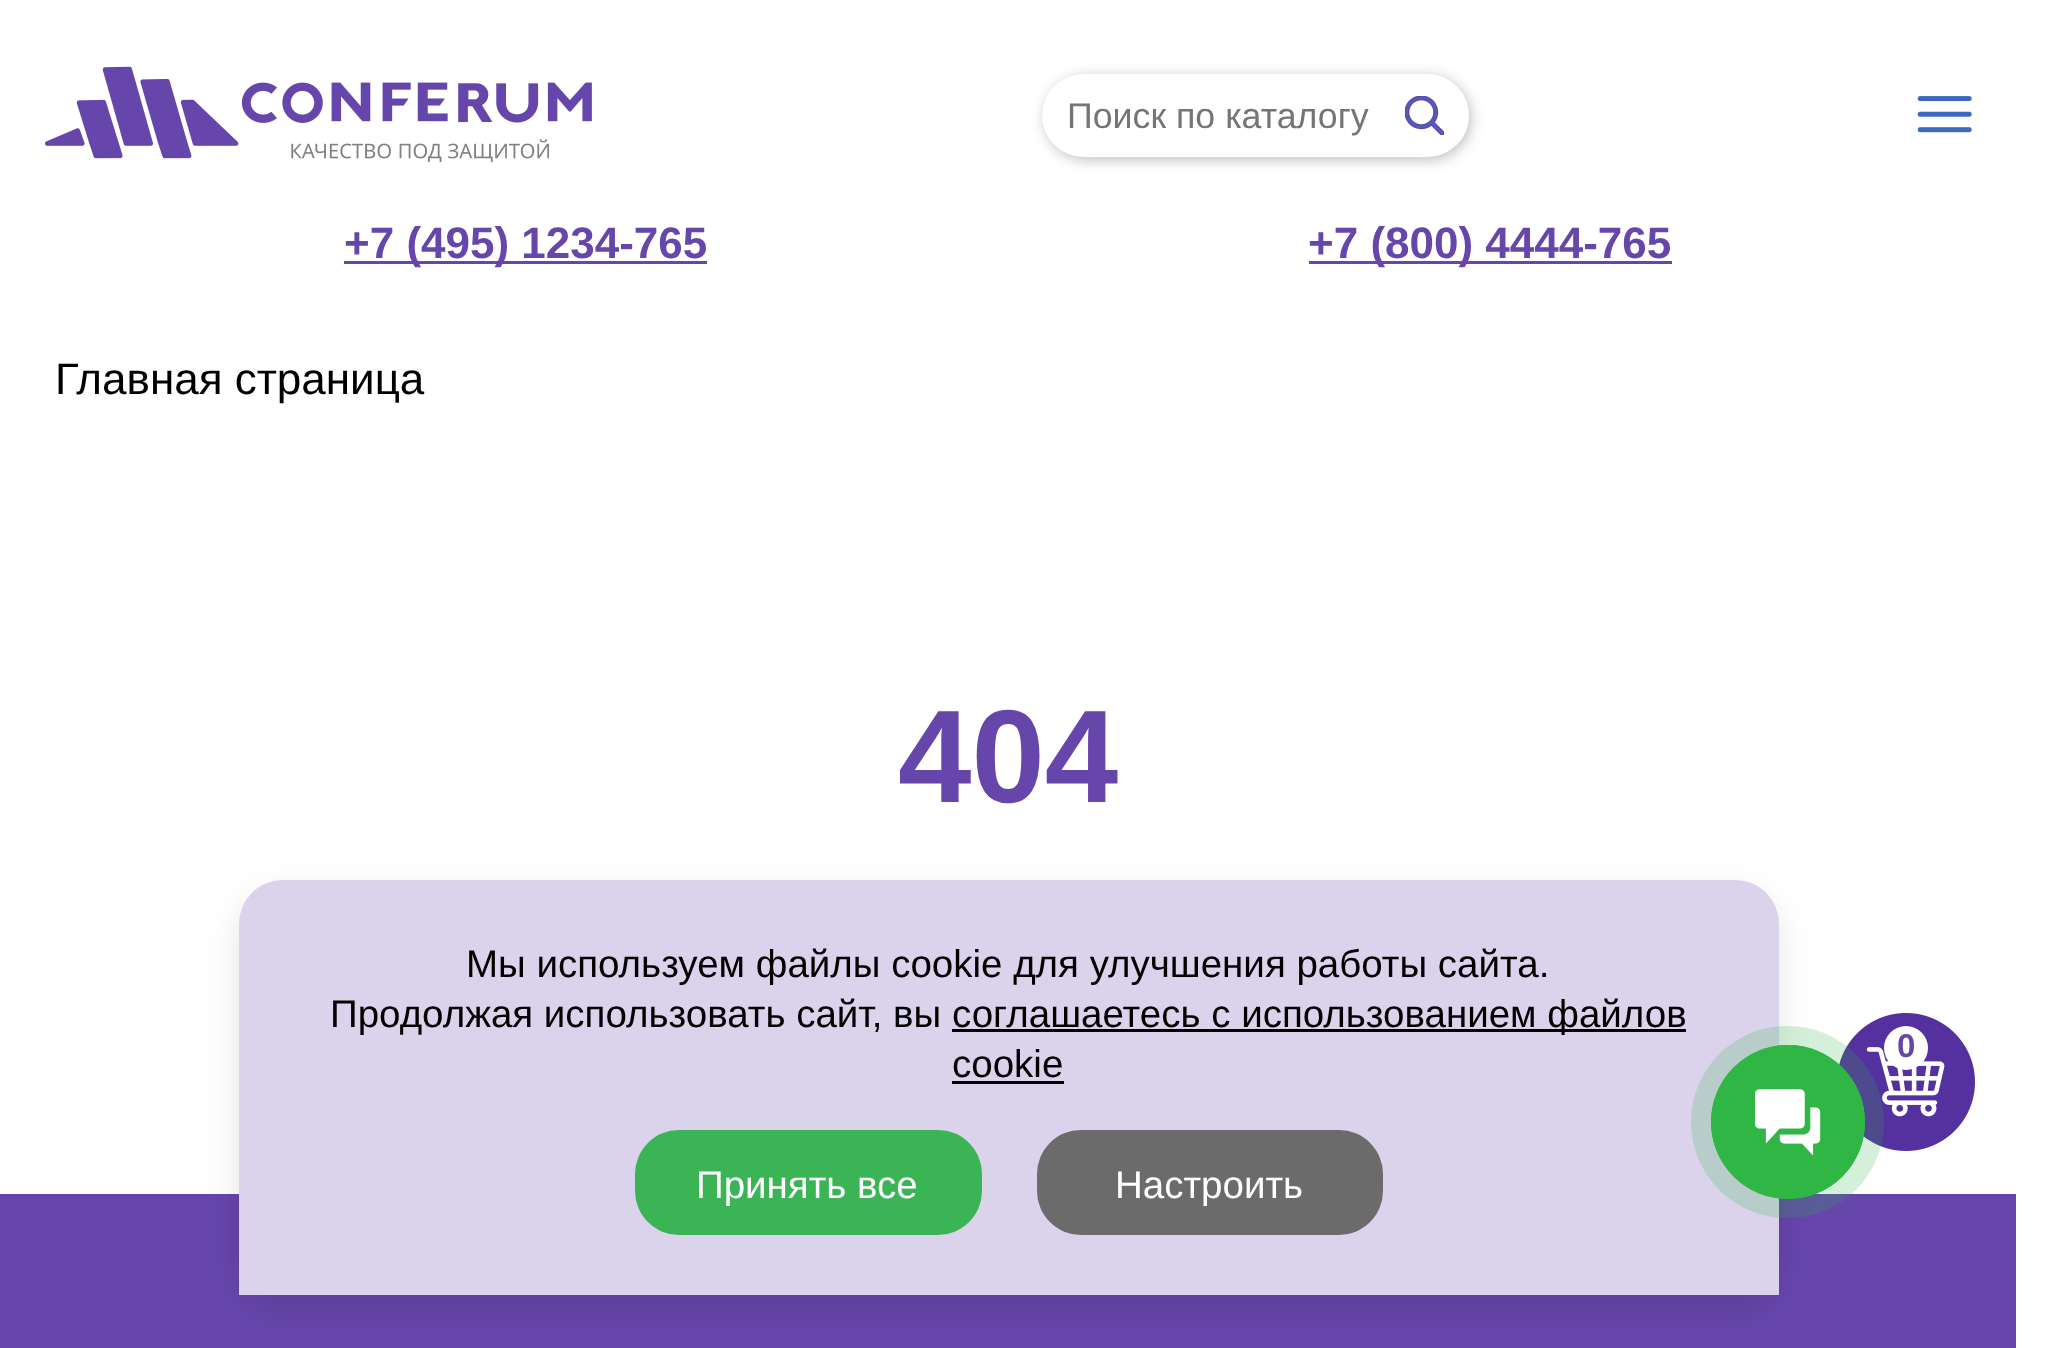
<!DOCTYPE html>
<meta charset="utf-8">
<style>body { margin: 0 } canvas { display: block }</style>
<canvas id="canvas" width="2056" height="1348"></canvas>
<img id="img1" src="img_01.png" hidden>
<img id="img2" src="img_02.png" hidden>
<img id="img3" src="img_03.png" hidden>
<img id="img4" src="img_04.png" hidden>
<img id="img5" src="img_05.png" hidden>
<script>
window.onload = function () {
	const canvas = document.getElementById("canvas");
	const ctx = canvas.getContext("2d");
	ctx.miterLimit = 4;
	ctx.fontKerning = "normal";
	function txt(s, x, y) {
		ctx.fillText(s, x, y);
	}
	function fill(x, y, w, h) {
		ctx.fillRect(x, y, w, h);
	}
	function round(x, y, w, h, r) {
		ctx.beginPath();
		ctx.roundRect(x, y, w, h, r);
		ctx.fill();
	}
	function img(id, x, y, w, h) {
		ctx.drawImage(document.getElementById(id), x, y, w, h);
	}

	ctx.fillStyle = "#FFFFFF";
	fill(0, 0, 2056, 1348);
	img("img1", 45, 66, 547, 97);
	ctx.fillStyle = "rgba(0, 0, 0, 0.25)";
	ctx.filter = "blur(7px)";
	ctx.beginPath();
	ctx.roundRect(1045, 77, 426, 83, 41.5);
	ctx.fill();
	ctx.filter = "none";
	ctx.fillStyle = "#FFFFFF";
	round(1042, 74, 427, 83, 41.5);
	img("img2", 1405, 96, 39, 39);
	img("img3", 1917, 96, 55, 37);
	ctx.fillStyle = "#6646AB";
	fill(344, 261, 363, 3);
	fill(1309, 261, 363, 3);
	img("img4", 1839, 1013, 136, 138);
	ctx.fillStyle = "#FFFFFF";
	ctx.beginPath();
	ctx.arc(1906, 1048, 22, 0, Math.PI * 2);
	ctx.fill();
	ctx.fillStyle = "#6646AB";
	fill(0, 1194, 2016, 154);
	ctx.fillStyle = "rgba(0, 0, 0, 0.1)";
	ctx.filter = "blur(16.5px)";
	ctx.beginPath();
	ctx.roundRect(239, 894, 1540, 415, 44);
	ctx.fill();
	ctx.filter = "none";
	ctx.fillStyle = "#DBD3EB";
	ctx.beginPath();
	ctx.roundRect(239, 880, 1540, 415, [44, 44, 0, 0]);
	ctx.fill();
	ctx.fillStyle = "#000000";
	fill(952, 1029, 734, 3);
	fill(952, 1081, 112, 3);
	ctx.fillStyle = "#3BB456";
	round(635, 1130, 347, 105, 44);
	ctx.fillStyle = "#6B6B6B";
	round(1037, 1130, 346, 105, 44);
	ctx.fillStyle = "rgba(47, 182, 68, 0.2)";
	round(1691, 1026, 193, 192, 96);
	ctx.beginPath();
	ctx.arc(1788, 1122, 76, 0, Math.PI * 2);
	ctx.strokeStyle = "#2FB644";
	ctx.lineWidth = 2;
	ctx.stroke();
	ctx.fillStyle = "#2FB644";
	ctx.beginPath();
	ctx.arc(1788, 1122, 77, 0, Math.PI * 2);
	ctx.fill();
	img("img5", 1755, 1089, 66, 66);
	ctx.font = "35.75px Liberation Sans";
	ctx.fillStyle = "#757575";
	txt("Поиск по каталогу", 1067, 128);
	ctx.font = "bold 44px Liberation Sans";
	ctx.fillStyle = "#6646AB";
	txt("+7 (495) 1234-765", 344, 258);
	txt("+7 (800) 4444-765", 1308, 258);
	ctx.font = "44px Liberation Sans";
	ctx.fillStyle = "#000000";
	txt("Главная страница", 55, 394);
	ctx.font = "bold 132px Liberation Sans";
	ctx.fillStyle = "#6646AB";
	txt("404", 898, 802);
	ctx.font = "bold 33px Liberation Sans";
	txt("0", 1897, 1057);
	ctx.font = "38.5px Liberation Sans";
	ctx.fillStyle = "#000000";
	txt("Мы используем файлы cookie для улучшения работы сайта.", 466, 977);
	txt("Продолжая использовать сайт, вы", 330, 1027);
	txt("соглашаетесь с использованием файлов", 952, 1027);
	txt("cookie", 952, 1077);
	ctx.fillStyle = "#FFFFFF";
	txt("Принять все", 696, 1198);
	txt("Настроить", 1115, 1198);
};
</script>
